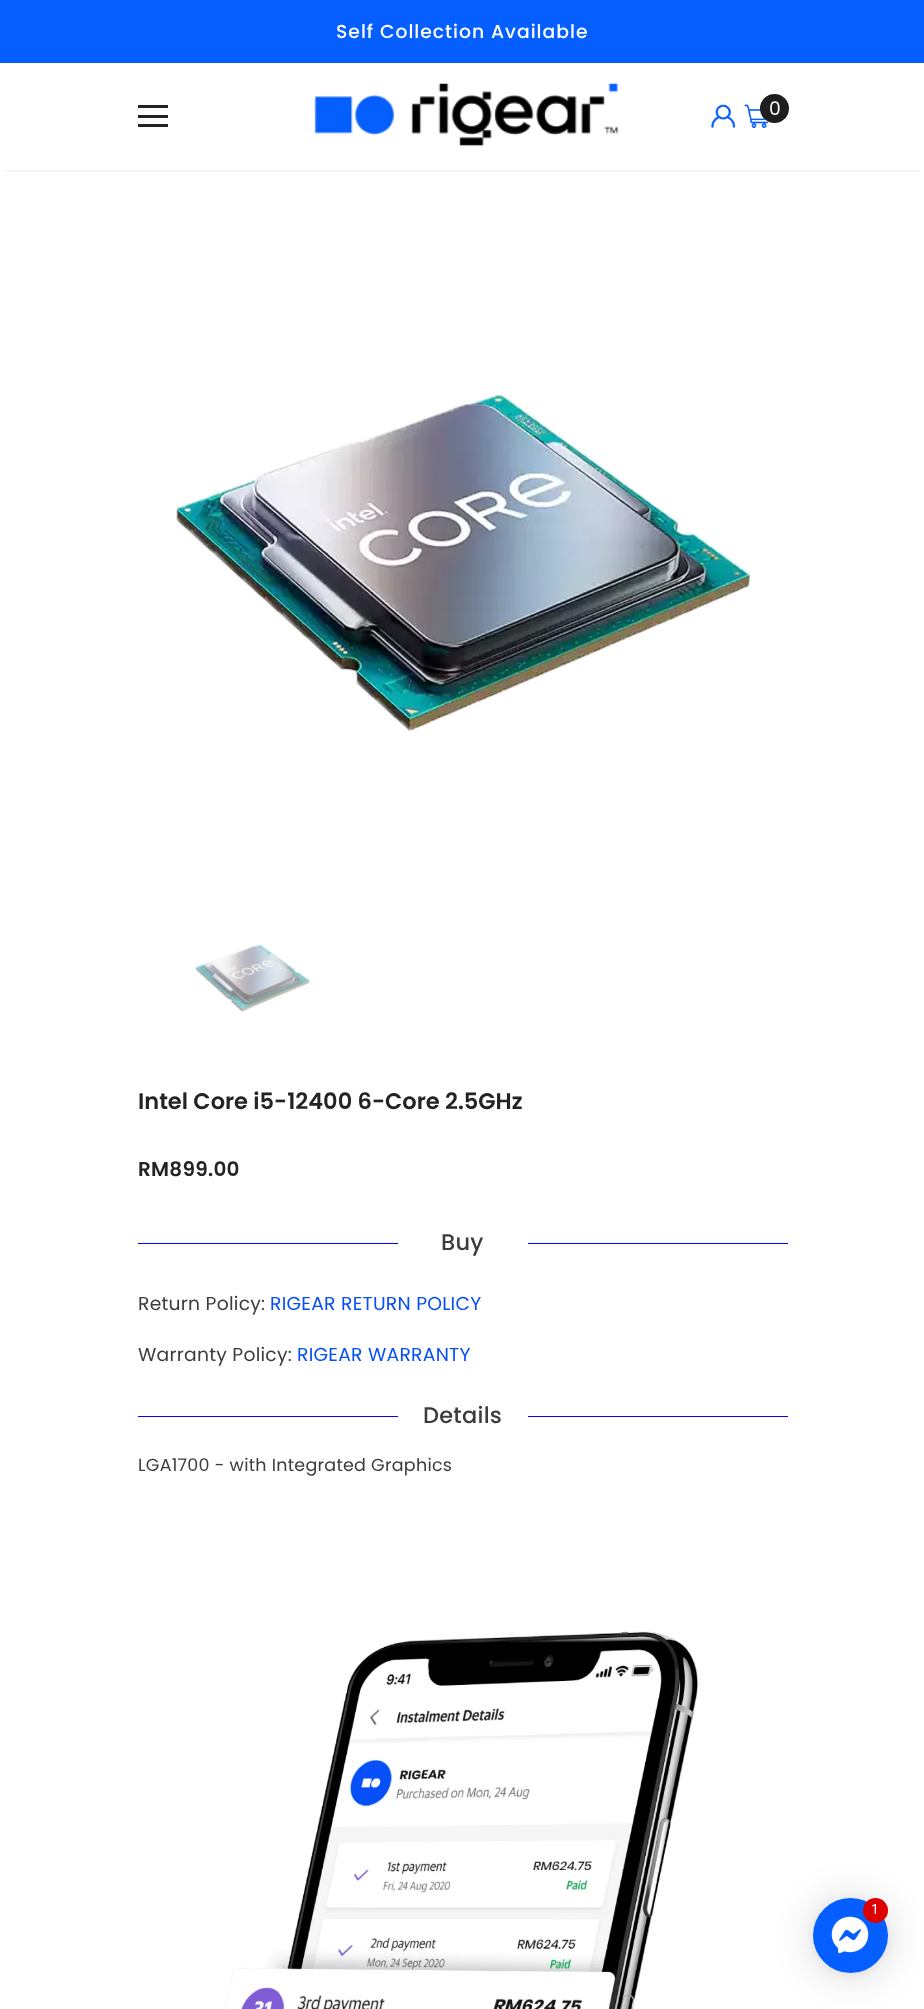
<!DOCTYPE html>
<meta charset="utf-8">
<style>body { margin: 0 } canvas { display: block }</style>
<canvas id="canvas" width="924" height="2009"></canvas>
<img id="img1" src="img_01.png" hidden>
<img id="img2" src="img_02.png" hidden>
<img id="img3" src="img_03.png" hidden>
<img id="img4" src="img_04.png" hidden>
<img id="img5" src="img_05.png" hidden>
<img id="img6" src="img_06.png" hidden>
<img id="img7" src="img_07.png" hidden>
<script>
window.onload = function () {
	const canvas = document.getElementById("canvas");
	const ctx = canvas.getContext("2d");
	ctx.miterLimit = 4;
	ctx.fontKerning = "normal";
	function txt(s, x, y) {
		ctx.fillText(s, x, y);
	}
	function fill(x, y, w, h) {
		ctx.fillRect(x, y, w, h);
	}
	function img(id, x, y, w, h) {
		ctx.drawImage(document.getElementById(id), x, y, w, h);
	}

	ctx.fillStyle = "#FFFFFF";
	fill(0, 0, 924, 2009);
	ctx.fillStyle = "#055EFF";
	fill(0, 0, 924, 63);
	ctx.save();
	ctx.beginPath();
	ctx.rect(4, 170, 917, 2);
	ctx.clip();
	ctx.fillStyle = "rgba(0, 0, 0, 0.12)";
	ctx.filter = "blur(2px)";
	ctx.beginPath();
	ctx.rect(4, 70, 917, 100);
	ctx.fill();
	ctx.filter = "none";
	ctx.restore();
	ctx.fillStyle = "#232323";
	fill(138, 105, 30, 3);
	fill(138, 115, 30, 3);
	fill(138, 124, 30, 3);
	img("img1", 314, 83, 305, 64);
	img("img2", 711, 104, 25, 24);
	img("img3", 744, 104, 25, 25);
	ctx.fillStyle = "#1E1E1E";
	ctx.beginPath();
	ctx.arc(774.5, 108.5, 14.5, 0, Math.PI * 2);
	ctx.fill();
	img("img4", 176, 395, 575, 336);
	img("img5", 195, 944, 116, 68);
	ctx.fillStyle = "#0000FF";
	fill(138, 1243, 260, 1);
	fill(528, 1243, 260, 1);
	fill(138, 1416, 260, 1);
	fill(528, 1416, 260, 1);
	img("img6", 224, 1631, 475, 378);
	ctx.fillStyle = "rgba(0, 0, 0, 0.16)";
	ctx.filter = "blur(20px)";
	ctx.beginPath();
	ctx.roundRect(813, 1900, 75, 75, 37.5);
	ctx.fill();
	ctx.filter = "none";
	ctx.fillStyle = "rgba(0, 0, 0, 0.06)";
	ctx.filter = "blur(4px)";
	ctx.beginPath();
	ctx.roundRect(813, 1899, 75, 75, 37.5);
	ctx.fill();
	ctx.filter = "none";
	ctx.fillStyle = "#055EFF";
	ctx.beginPath();
	ctx.arc(850.5, 1935.5, 37.5, 0, Math.PI * 2);
	ctx.fill();
	img("img7", 831, 1916, 38, 38);
	ctx.fillStyle = "#DD0000";
	ctx.beginPath();
	ctx.arc(875.5, 1910.5, 12.5, 0, Math.PI * 2);
	ctx.fill();
	ctx.letterSpacing = "1px";
	ctx.font = "500 18.75px Poppins";
	ctx.fillStyle = "#FFFFFF";
	txt("Self Collection Available", 336, 38);
	ctx.letterSpacing = "0px";
	ctx.font = "18.75px Poppins";
	txt("0", 769, 115);
	ctx.font = "600 22.5px Poppins";
	ctx.fillStyle = "#232323";
	txt("Intel Core i5-12400 6-Core 2.5GHz", 138, 1109);
	ctx.letterSpacing = "0.25px";
	ctx.font = "600 20px Poppins";
	txt("RM899.00", 138, 1176);
	ctx.font = "500 22.5px Poppins";
	ctx.fillStyle = "#3C3C3C";
	txt("Buy", 441, 1250);
	ctx.font = "18.75px Poppins";
	txt("Return Policy:", 138, 1310);
	ctx.fillStyle = "#064FF7";
	txt("RIGEAR RETURN POLICY", 270, 1310);
	ctx.fillStyle = "#3C3C3C";
	txt("Warranty Policy:", 138, 1361);
	ctx.fillStyle = "#064FF7";
	txt("RIGEAR WARRANTY", 297, 1361);
	ctx.font = "500 22.5px Poppins";
	ctx.fillStyle = "#3C3C3C";
	txt("Details", 423, 1423);
	ctx.font = "17.5px Poppins";
	txt("LGA1700 - with Integrated Graphics", 138, 1471);
	ctx.letterSpacing = "0px";
	ctx.font = "14px Roboto";
	ctx.fillStyle = "#FFFFFF";
	txt("1", 871, 1914);
};
</script>
